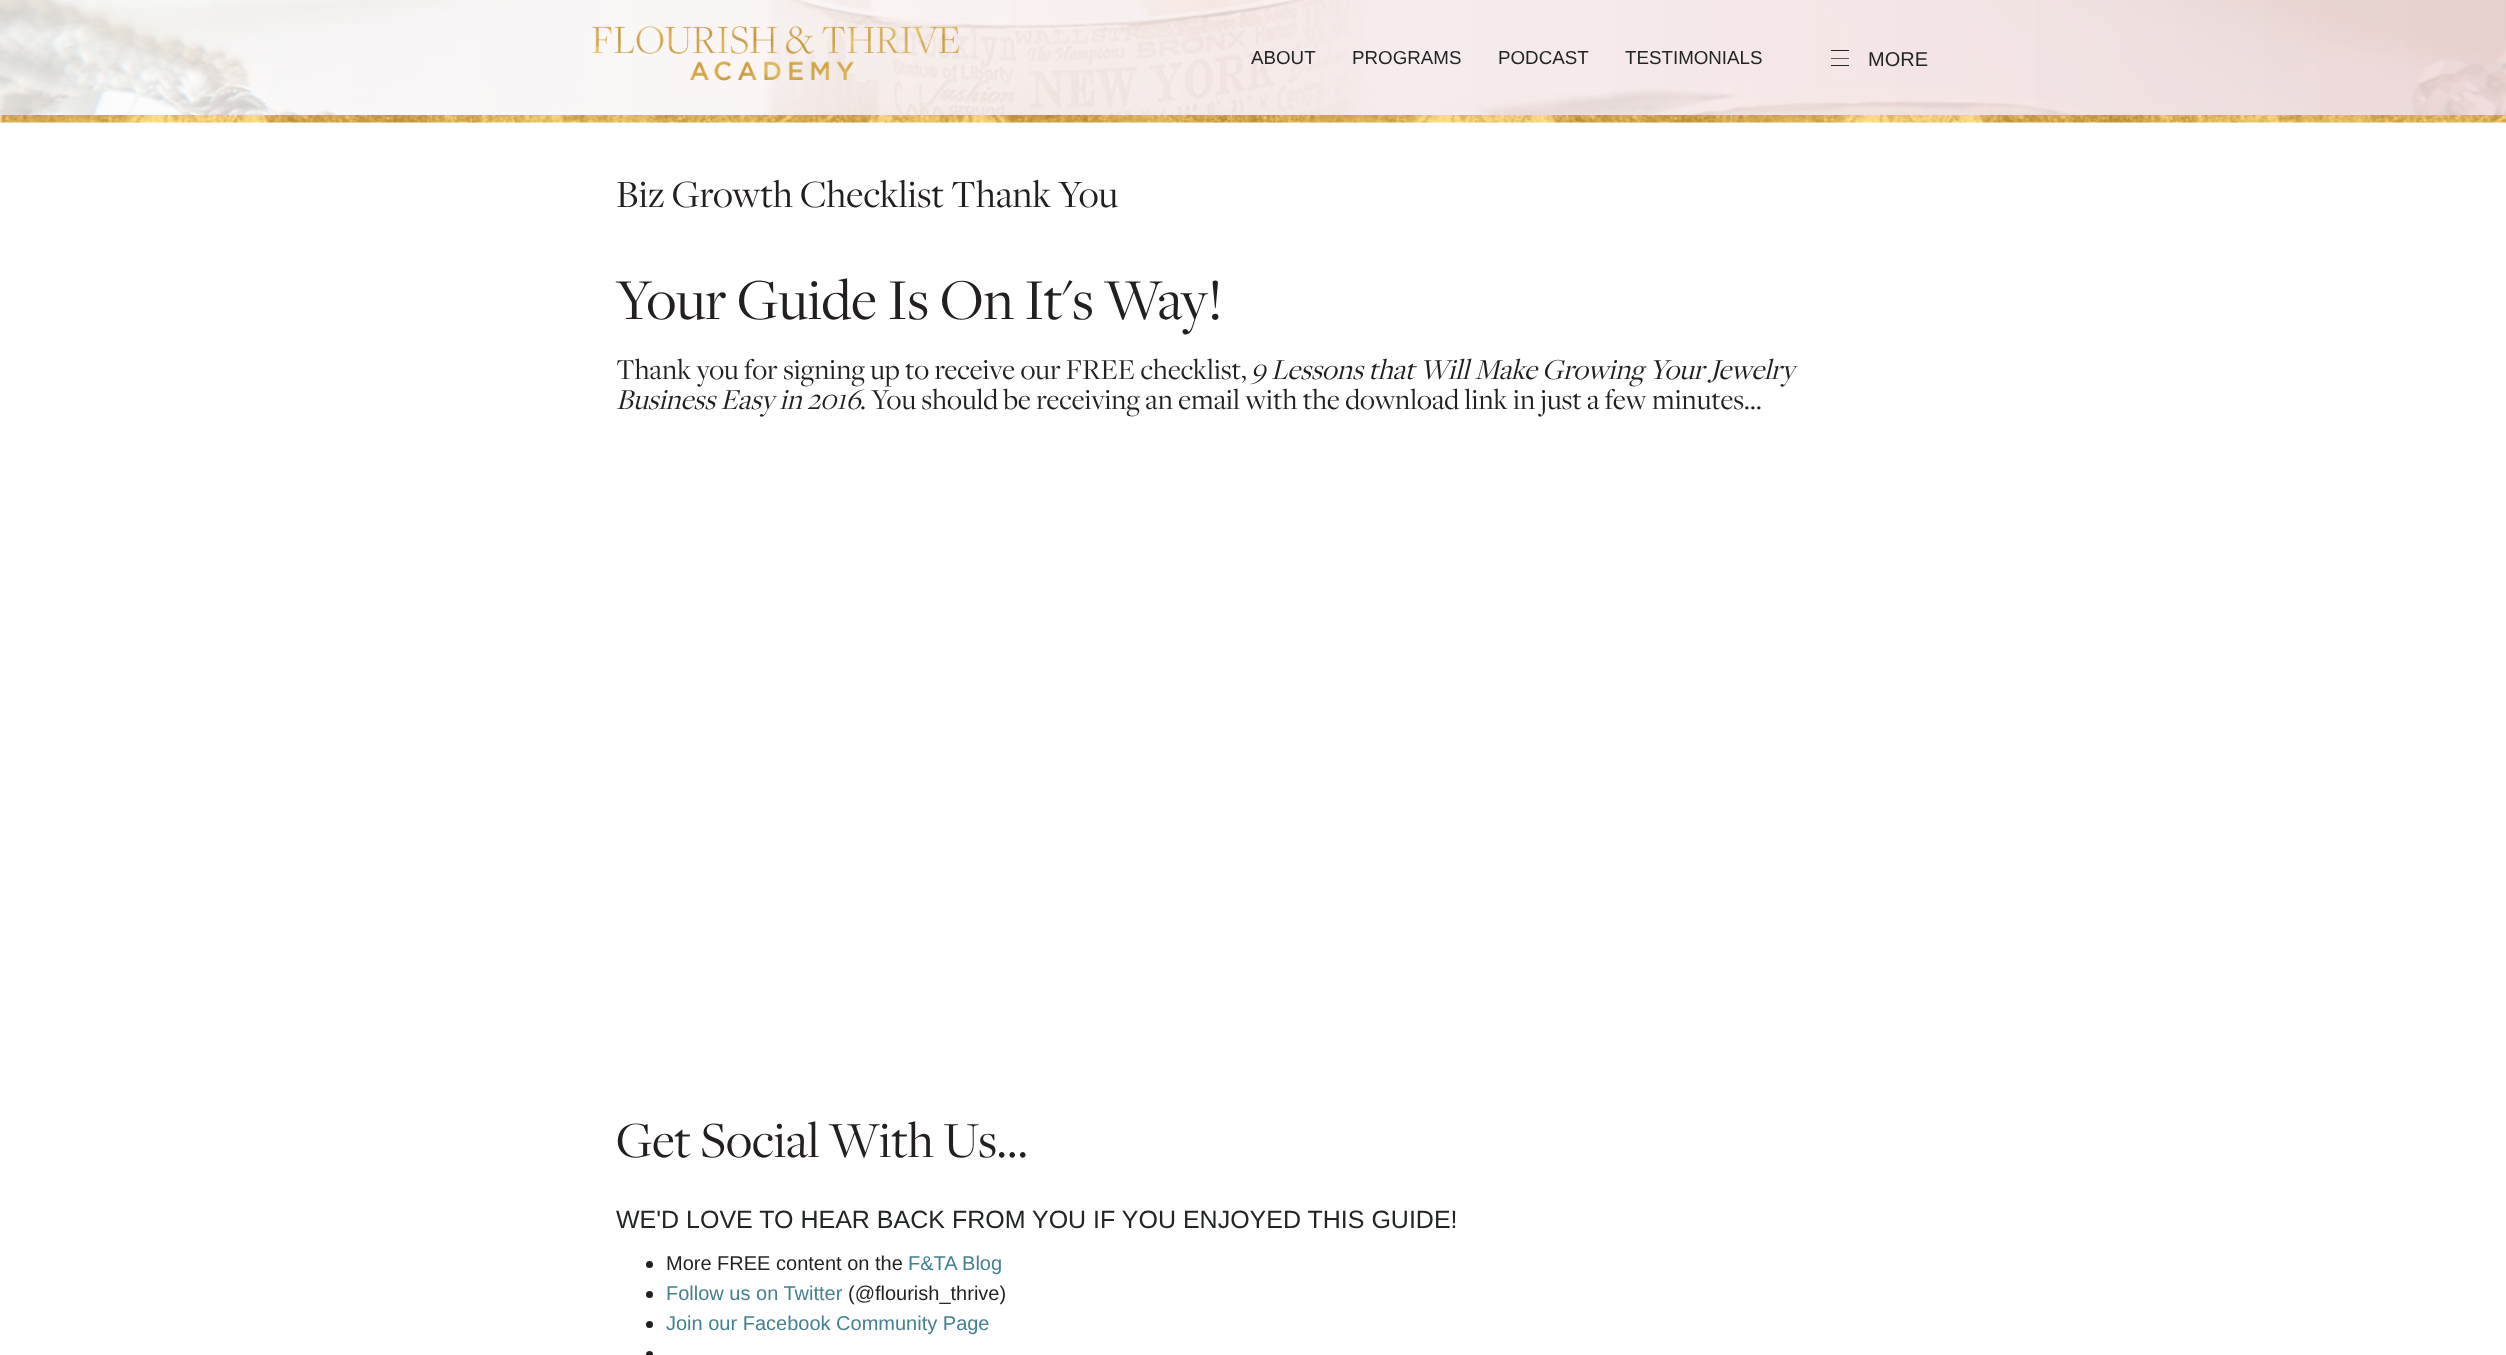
<!DOCTYPE html>
<meta charset="utf-8">
<style>body { margin: 0 } canvas { display: block }</style>
<canvas id="canvas" width="2506" height="1355"></canvas>
<img id="img1" src="img_01.png" hidden>
<img id="img2" src="img_02.png" hidden>
<img id="img3" src="img_03.png" hidden>
<script>
window.onload = function () {
	const canvas = document.getElementById("canvas");
	const ctx = canvas.getContext("2d");
	ctx.miterLimit = 4;
	ctx.fontKerning = "normal";
	function txt(s, x, y) {
		ctx.fillText(s, x, y);
	}
	function fill(x, y, w, h) {
		ctx.fillRect(x, y, w, h);
	}
	function img(id, x, y, w, h) {
		ctx.drawImage(document.getElementById(id), x, y, w, h);
	}

	ctx.fillStyle = "#FFFFFF";
	fill(0, 0, 2506, 1355);
	img("img1", 0, 0, 2506, 115);
	img("img2", 592, 26, 368, 55);
	ctx.fillStyle = "#222526";
	fill(1831, 50, 18, 1);
	ctx.fillStyle = "#5A595A";
	fill(1831, 58, 18, 1);
	ctx.fillStyle = "#222526";
	fill(1831, 65, 18, 1);
	img("img3", 0, 115, 2506, 8);
	ctx.fillStyle = "#231F20";
	ctx.beginPath();
	ctx.arc(649.5, 1264.5, 3.5, 0, Math.PI * 2);
	ctx.fill();
	ctx.beginPath();
	ctx.arc(649.5, 1294.5, 3.5, 0, Math.PI * 2);
	ctx.fill();
	ctx.beginPath();
	ctx.arc(649.5, 1324.5, 3.5, 0, Math.PI * 2);
	ctx.fill();
	ctx.beginPath();
	ctx.arc(649.5, 1354.5, 3.5, 0, Math.PI * 2);
	ctx.fill();
	ctx.font = "18.75px Liberation Sans";
	ctx.fillStyle = "#222526";
	txt("ABOUT", 1251, 64);
	txt("PROGRAMS", 1352, 64);
	txt("PODCAST", 1498, 64);
	txt("TESTIMONIALS", 1625, 64);
	ctx.font = "20px Liberation Sans";
	txt("MORE", 1868, 66);
	ctx.font = "40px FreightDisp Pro";
	ctx.fillStyle = "#231F20";
	txt("Biz Growth Checklist Thank You", 616, 207);
	ctx.font = "60px FreightDisp Pro";
	txt("Your Guide Is On It's Way!", 616, 319);
	ctx.font = "30px FreightDisp Pro";
	txt("Thank you for signing up to receive our FREE checklist,", 616, 379);
	ctx.font = "italic 30px FreightDisp Pro";
	txt("9 Lessons that Will Make Growing Your Jewelry", 1251, 379);
	txt("Business Easy in 2016", 616, 409);
	ctx.font = "30px FreightDisp Pro";
	txt(". You should be receiving an email with the download link in just a few minutes…", 860, 409);
	ctx.font = "52.5px FreightDisp Pro";
	txt("Get Social With Us…", 616, 1157);
	ctx.font = "25px Liberation Sans";
	ctx.fillStyle = "#222526";
	txt("WE'D LOVE TO HEAR BACK FROM YOU IF YOU ENJOYED THIS GUIDE!", 616, 1228);
	ctx.font = "20px Liberation Sans";
	ctx.fillStyle = "#231F20";
	txt("More FREE content on the", 666, 1270);
	ctx.fillStyle = "#45818E";
	txt("F&TA Blog", 908, 1270);
	txt("Follow us on Twitter", 666, 1300);
	ctx.fillStyle = "#231F20";
	txt("(@flourish_thrive)", 848, 1300);
	ctx.fillStyle = "#45818E";
	txt("Join our Facebook Community Page", 666, 1330);
};
</script>
